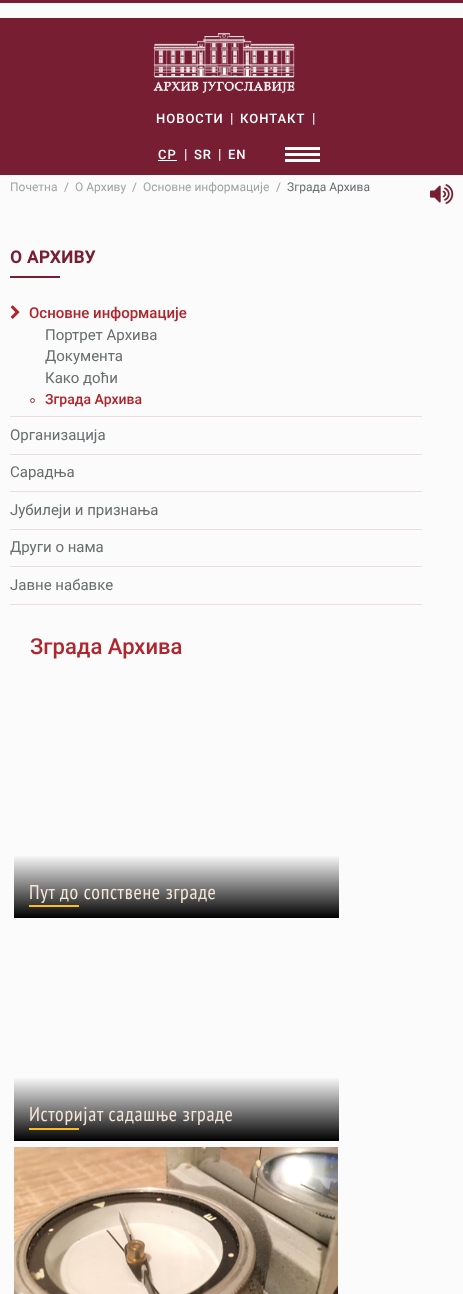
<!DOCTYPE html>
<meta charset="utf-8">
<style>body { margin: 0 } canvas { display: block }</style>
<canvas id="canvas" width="463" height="1294"></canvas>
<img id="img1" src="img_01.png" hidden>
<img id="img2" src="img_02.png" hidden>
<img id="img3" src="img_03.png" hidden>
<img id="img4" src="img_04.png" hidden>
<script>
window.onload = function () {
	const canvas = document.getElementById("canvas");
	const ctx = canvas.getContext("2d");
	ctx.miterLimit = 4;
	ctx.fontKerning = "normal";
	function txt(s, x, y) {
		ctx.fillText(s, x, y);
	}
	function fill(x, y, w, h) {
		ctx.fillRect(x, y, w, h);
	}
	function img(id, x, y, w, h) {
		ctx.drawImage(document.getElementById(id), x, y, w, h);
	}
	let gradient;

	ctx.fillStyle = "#FBFBFB";
	fill(0, 0, 463, 1294);
	ctx.fillStyle = "#771E32";
	fill(0, 0, 463, 3);
	fill(0, 18, 463, 157);
	img("img1", 153, 33, 142, 60);
	ctx.fillStyle = "#FFFFFF";
	fill(158, 160, 19, 1);
	fill(285, 147, 35, 3);
	fill(285, 153, 35, 3);
	fill(285, 159, 35, 3);
	img("img2", 430, 184, 24, 20);
	ctx.fillStyle = "#771E32";
	fill(10, 276, 50, 2);
	img("img3", 10, 305, 10, 14);
	ctx.beginPath();
	ctx.arc(32.5, 400.5, 2, 0, Math.PI * 2);
	ctx.strokeStyle = "#AF252B";
	ctx.stroke();
	ctx.fillStyle = "#EBDEDF";
	fill(10, 416, 412, 1);
	fill(10, 454, 412, 1);
	fill(10, 491, 412, 1);
	fill(10, 529, 412, 1);
	fill(10, 566, 412, 1);
	fill(10, 604, 412, 1);
	gradient = ctx.createLinearGradient(177, 855, 177, 918);
	gradient.addColorStop(0, "#FBFBFB");
	gradient.addColorStop(1, "#000000");
	ctx.fillStyle = gradient;
	fill(14, 856, 325, 62);
	ctx.fillStyle = "#FFBD1B";
	fill(29, 905, 50, 2);
	gradient = ctx.createLinearGradient(177, 1077, 177, 1141);
	gradient.addColorStop(0, "#FBFBFB");
	gradient.addColorStop(1, "#000000");
	ctx.fillStyle = gradient;
	fill(14, 1078, 325, 63);
	ctx.fillStyle = "#FFBD1B";
	fill(29, 1128, 50, 2);
	img("img4", 14, 1147, 324, 147);
	ctx.letterSpacing = "1px";
	ctx.font = "500 13px Roboto";
	ctx.fillStyle = "#FFFFFF";
	txt("НОВОСТИ", 156, 123);
	ctx.letterSpacing = "0px";
	ctx.font = "14px Roboto";
	txt("|", 230, 123);
	ctx.letterSpacing = "1px";
	ctx.font = "500 13px Roboto";
	txt("КОНТАКТ", 240, 123);
	ctx.letterSpacing = "0px";
	ctx.font = "14px Roboto";
	txt("|", 312, 123);
	ctx.letterSpacing = "1px";
	ctx.font = "500 13px Roboto";
	txt("СР", 158, 159);
	ctx.letterSpacing = "0px";
	ctx.font = "14px Roboto";
	txt("|", 184, 159);
	ctx.letterSpacing = "1px";
	ctx.font = "500 13px Roboto";
	txt("SR", 194, 159);
	ctx.letterSpacing = "0px";
	ctx.font = "14px Roboto";
	txt("|", 218, 159);
	ctx.letterSpacing = "1px";
	ctx.font = "500 13px Roboto";
	txt("EN", 228, 159);
	ctx.letterSpacing = "0px";
	ctx.font = "12px Roboto";
	ctx.fillStyle = "#A1A3A4";
	txt("Почетна", 10, 191);
	ctx.fillStyle = "#A09C89";
	txt("/", 64, 191);
	ctx.fillStyle = "#A1A3A4";
	txt("О Архиву", 75, 191);
	ctx.fillStyle = "#A09C89";
	txt("/", 132, 191);
	ctx.fillStyle = "#A1A3A4";
	txt("Основне информације", 143, 191);
	ctx.fillStyle = "#A09C89";
	txt("/", 276, 191);
	ctx.fillStyle = "#686D6E";
	txt("Зграда Архива", 287, 191);
	ctx.letterSpacing = "0.5px";
	ctx.font = "bold 17px Roboto";
	ctx.fillStyle = "#771E32";
	txt("О АРХИВУ", 10, 263);
	ctx.letterSpacing = "0px";
	ctx.font = "500 15px Roboto";
	ctx.fillStyle = "#AF252B";
	txt("Основне информације", 29, 318);
	ctx.font = "15px Roboto";
	ctx.fillStyle = "#686D6E";
	txt("Портрет Архива", 45, 340);
	txt("Документа", 45, 361);
	txt("Како доћи", 45, 383);
	ctx.font = "500 14px Roboto";
	ctx.fillStyle = "#AF252B";
	txt("Зграда Архива", 45, 404);
	ctx.font = "15px Roboto";
	ctx.fillStyle = "#686D6E";
	txt("Организација", 10, 440);
	txt("Сарадња", 10, 477);
	txt("Јубилеји и признања", 10, 515);
	txt("Други о нама", 10, 552);
	txt("Јавне набавке", 10, 590);
	ctx.font = "500 22px Roboto";
	ctx.fillStyle = "#AF252B";
	txt("Зграда Архива", 30, 654);
	ctx.letterSpacing = "0.7px";
	ctx.font = "20px PT Sans Narrow";
	ctx.fillStyle = "#F4E7D6";
	txt("Пут до сопствене зграде", 29, 899);
	txt("Историјат садашње зграде", 29, 1121);
};
</script>
